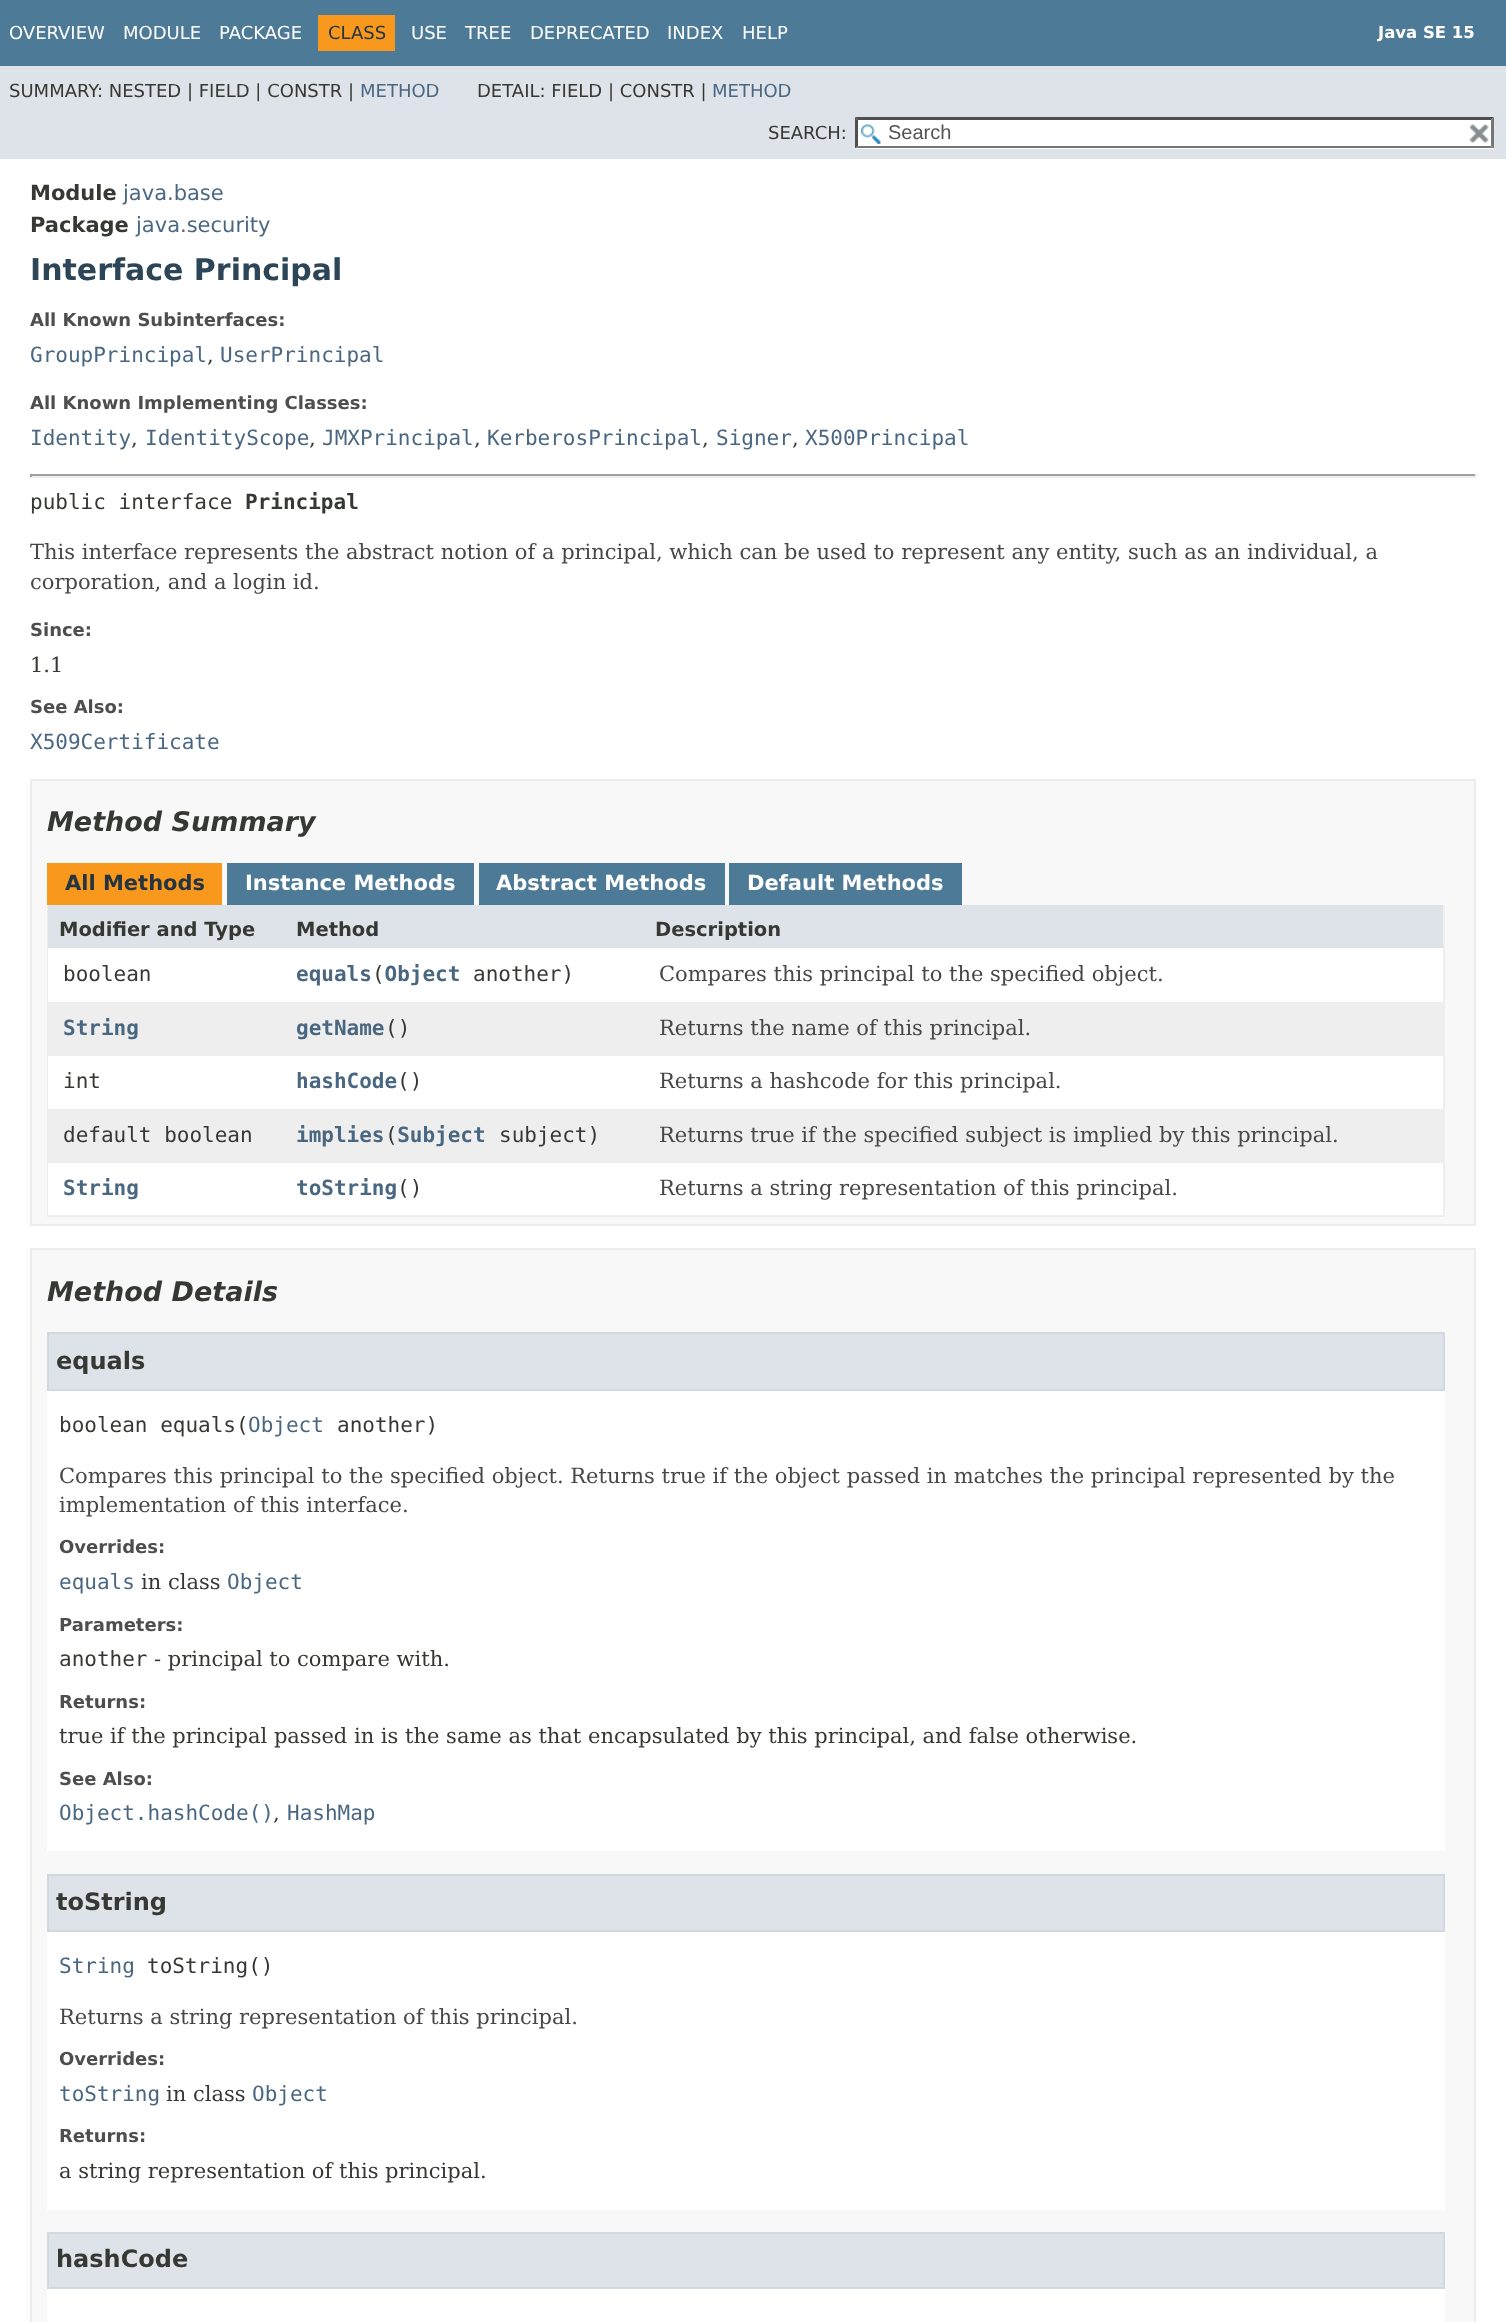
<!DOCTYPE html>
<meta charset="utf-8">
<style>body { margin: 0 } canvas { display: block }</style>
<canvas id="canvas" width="1506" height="2322"></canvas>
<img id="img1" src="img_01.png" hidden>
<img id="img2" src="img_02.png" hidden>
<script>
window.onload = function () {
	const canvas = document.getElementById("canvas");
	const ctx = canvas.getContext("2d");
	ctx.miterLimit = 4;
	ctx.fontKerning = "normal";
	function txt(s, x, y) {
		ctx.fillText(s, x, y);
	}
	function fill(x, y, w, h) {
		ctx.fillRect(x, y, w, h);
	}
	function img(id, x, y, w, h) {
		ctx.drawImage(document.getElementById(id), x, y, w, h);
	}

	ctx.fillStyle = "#FFFFFF";
	fill(0, 0, 1506, 2322);
	ctx.fillStyle = "#4D7A97";
	fill(0, 0, 1506, 66);
	ctx.fillStyle = "#F8981D";
	fill(318, 15, 77, 36);
	ctx.fillStyle = "#DEE3E9";
	fill(0, 66, 1506, 93);
	ctx.fillStyle = "#FFFFFF";
	fill(855, 117, 639, 32);
	img("img1", 861, 124, 20, 20);
	ctx.fillStyle = "#4F4F4F";
	ctx.beginPath();
	ctx.moveTo(855, 117);
	ctx.lineTo(1494, 117);
	ctx.lineTo(1491, 120);
	ctx.lineTo(858, 120);
	ctx.closePath();
	ctx.fill();
	ctx.fillStyle = "#767676";
	ctx.beginPath();
	ctx.moveTo(1494, 117);
	ctx.lineTo(1494, 148.5);
	ctx.lineTo(1491, 145.5);
	ctx.lineTo(1491, 120);
	ctx.closePath();
	ctx.fill();
	ctx.beginPath();
	ctx.moveTo(1494, 148);
	ctx.lineTo(855, 148);
	ctx.lineTo(858, 146);
	ctx.lineTo(1491, 146);
	ctx.closePath();
	ctx.fill();
	ctx.fillStyle = "#4F4F4F";
	ctx.beginPath();
	ctx.moveTo(855, 148.5);
	ctx.lineTo(855, 117);
	ctx.lineTo(858, 120);
	ctx.lineTo(858, 145.5);
	ctx.closePath();
	ctx.fill();
	img("img2", 1469, 124, 20, 19);
	ctx.fillStyle = "#9F9F9F";
	fill(30, 474, 1446, 2);
	ctx.fillStyle = "#EEEEEE";
	fill(1475, 474, 2, 3);
	fill(30, 476, 1446, 2);
	ctx.fillStyle = "#9F9F9F";
	fill(30, 474, 2, 3);
	ctx.fillStyle = "#F8F8F8";
	ctx.beginPath();
	ctx.rect(31, 780, 1444, 445);
	ctx.fill();
	ctx.strokeStyle = "#EDEDED";
	ctx.lineWidth = 2;
	ctx.stroke();
	ctx.fillStyle = "#F8981D";
	fill(47, 863, 175, 42);
	ctx.fillStyle = "#4D7A97";
	fill(227, 863, 247, 42);
	fill(479, 863, 246, 42);
	fill(729, 863, 233, 42);
	ctx.fillStyle = "#EEEEEE";
	fill(1443, 905, 2, 312);
	fill(47, 1215, 1398, 2);
	fill(47, 905, 2, 312);
	ctx.fillStyle = "#DEE3E9";
	fill(48, 905, 1395, 43);
	ctx.fillStyle = "#FFFFFF";
	fill(48, 948, 1395, 54);
	ctx.fillStyle = "#EEEEEF";
	fill(49, 1002, 1394, 54);
	ctx.fillStyle = "#FFFFFF";
	fill(48, 1056, 1395, 53);
	ctx.fillStyle = "#EEEEEF";
	fill(49, 1109, 1394, 54);
	ctx.fillStyle = "#FFFFFF";
	fill(48, 1163, 1395, 52);
	ctx.fillStyle = "#F8F8F8";
	ctx.beginPath();
	ctx.rect(31, 1249, 1444, 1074);
	ctx.fill();
	ctx.stroke();
	ctx.fillStyle = "#FFFFFF";
	fill(47, 1391, 1398, 460);
	ctx.fillStyle = "#DEE3E9";
	ctx.beginPath();
	ctx.rect(48, 1333, 1396, 57);
	ctx.fill();
	ctx.strokeStyle = "#D0D9E0";
	ctx.stroke();
	ctx.fillStyle = "#FFFFFF";
	fill(47, 1932, 1398, 278);
	ctx.fillStyle = "#DEE3E9";
	ctx.beginPath();
	ctx.rect(48, 1875, 1396, 56);
	ctx.fill();
	ctx.stroke();
	ctx.fillStyle = "#FFFFFF";
	fill(47, 2289, 1398, 33);
	ctx.fillStyle = "#DEE3E9";
	ctx.beginPath();
	ctx.rect(48, 2233, 1396, 55);
	ctx.fill();
	ctx.stroke();
	ctx.font = "18px DejaVu Sans";
	ctx.fillStyle = "#FFFFFF";
	txt("OVERVIEW", 9, 39);
	txt("MODULE", 123, 39);
	txt("PACKAGE", 219, 39);
	ctx.fillStyle = "#253441";
	txt("CLASS", 328, 39);
	ctx.fillStyle = "#FFFFFF";
	txt("USE", 411, 39);
	txt("TREE", 465, 39);
	txt("DEPRECATED", 530, 39);
	txt("INDEX", 667, 39);
	txt("HELP", 742, 39);
	ctx.font = "bold 16.5px DejaVu Sans";
	txt("Java SE 15", 1378, 38);
	ctx.font = "18px DejaVu Sans";
	ctx.fillStyle = "#353833";
	txt("SUMMARY: NESTED | FIELD | CONSTR |", 9, 97);
	ctx.fillStyle = "#4A6782";
	txt("METHOD", 360, 97);
	ctx.fillStyle = "#353833";
	txt("DETAIL: FIELD | CONSTR |", 477, 97);
	ctx.fillStyle = "#4A6782";
	txt("METHOD", 712, 97);
	ctx.fillStyle = "#353833";
	txt("SEARCH:", 768, 139);
	ctx.font = "20px Liberation Sans";
	ctx.fillStyle = "#545454";
	txt("Search", 888, 139);
	ctx.font = "bold 21px DejaVu Sans";
	ctx.fillStyle = "#353833";
	txt("Module", 30, 200);
	ctx.font = "21px DejaVu Sans";
	ctx.fillStyle = "#4A6782";
	txt("java.base", 123, 200);
	ctx.font = "bold 21px DejaVu Sans";
	ctx.fillStyle = "#353833";
	txt("Package", 30, 232);
	ctx.font = "21px DejaVu Sans";
	ctx.fillStyle = "#4A6782";
	txt("java.security", 136, 232);
	ctx.font = "bold 30px DejaVu Sans";
	ctx.fillStyle = "#2C4557";
	txt("Interface Principal", 30, 280);
	ctx.font = "bold 18px DejaVu Sans";
	ctx.fillStyle = "#4E4E4E";
	txt("All Known Subinterfaces:", 30, 326);
	ctx.font = "21px DejaVu Sans Mono";
	ctx.fillStyle = "#4A6782";
	txt("GroupPrincipal", 30, 362);
	ctx.font = "21px DejaVu Serif";
	ctx.fillStyle = "#353833";
	txt(",", 207, 362);
	ctx.font = "21px DejaVu Sans Mono";
	ctx.fillStyle = "#4A6782";
	txt("UserPrincipal", 220, 362);
	ctx.font = "bold 18px DejaVu Sans";
	ctx.fillStyle = "#4E4E4E";
	txt("All Known Implementing Classes:", 30, 409);
	ctx.font = "21px DejaVu Sans Mono";
	ctx.fillStyle = "#4A6782";
	txt("Identity", 30, 445);
	ctx.font = "21px DejaVu Serif";
	ctx.fillStyle = "#353833";
	txt(",", 131, 445);
	ctx.font = "21px DejaVu Sans Mono";
	ctx.fillStyle = "#4A6782";
	txt("IdentityScope", 145, 445);
	ctx.font = "21px DejaVu Serif";
	ctx.fillStyle = "#353833";
	txt(",", 309, 445);
	ctx.font = "21px DejaVu Sans Mono";
	ctx.fillStyle = "#4A6782";
	txt("JMXPrincipal", 322, 445);
	ctx.font = "21px DejaVu Serif";
	ctx.fillStyle = "#353833";
	txt(",", 474, 445);
	ctx.font = "21px DejaVu Sans Mono";
	ctx.fillStyle = "#4A6782";
	txt("KerberosPrincipal", 487, 445);
	ctx.font = "21px DejaVu Serif";
	ctx.fillStyle = "#353833";
	txt(",", 702, 445);
	ctx.font = "21px DejaVu Sans Mono";
	ctx.fillStyle = "#4A6782";
	txt("Signer", 716, 445);
	ctx.font = "21px DejaVu Serif";
	ctx.fillStyle = "#353833";
	txt(",", 792, 445);
	ctx.font = "21px DejaVu Sans Mono";
	ctx.fillStyle = "#4A6782";
	txt("X500Principal", 805, 445);
	ctx.fillStyle = "#353833";
	txt("public interface", 30, 509);
	ctx.font = "bold 21px DejaVu Sans Mono";
	txt("Principal", 245, 509);
	ctx.font = "21px DejaVu Serif";
	ctx.fillStyle = "#474747";
	txt("This interface represents the abstract notion of a principal, which can be used to represent any entity, such as an individual, a", 30, 559);
	txt("corporation, and a login id.", 30, 589);
	ctx.font = "bold 18px DejaVu Sans";
	ctx.fillStyle = "#4E4E4E";
	txt("Since:", 30, 636);
	ctx.font = "21px DejaVu Serif";
	ctx.fillStyle = "#353833";
	txt("1.1", 30, 672);
	ctx.font = "bold 18px DejaVu Sans";
	ctx.fillStyle = "#4E4E4E";
	txt("See Also:", 30, 713);
	ctx.font = "21px DejaVu Sans Mono";
	ctx.fillStyle = "#4A6782";
	txt("X509Certificate", 30, 749);
	ctx.font = "italic bold 27px DejaVu Sans";
	ctx.fillStyle = "#353833";
	txt("Method Summary", 47, 831);
	ctx.font = "bold 21px DejaVu Sans";
	ctx.fillStyle = "#253441";
	txt("All Methods", 65, 890);
	ctx.fillStyle = "#FFFFFF";
	txt("Instance Methods", 245, 890);
	txt("Abstract Methods", 496, 890);
	txt("Default Methods", 747, 890);
	ctx.font = "bold 19.5px DejaVu Sans";
	ctx.fillStyle = "#353833";
	txt("Modifier and Type", 59, 936);
	txt("Method", 296, 936);
	txt("Description", 655, 936);
	ctx.font = "21px DejaVu Sans Mono";
	txt("boolean", 63, 981);
	ctx.font = "bold 21px DejaVu Sans Mono";
	ctx.fillStyle = "#4A6782";
	txt("equals Object", 296, 981);
	ctx.font = "21px DejaVu Sans Mono";
	ctx.fillStyle = "#353833";
	txt("(", 372, 981);
	txt("another)", 473, 981);
	ctx.font = "21px DejaVu Serif";
	ctx.fillStyle = "#474747";
	txt("Compares this principal to the specified object.", 659, 981);
	ctx.font = "bold 21px DejaVu Sans Mono";
	ctx.fillStyle = "#4A6782";
	txt("String", 63, 1035);
	txt("getName", 296, 1035);
	ctx.font = "21px DejaVu Sans Mono";
	ctx.fillStyle = "#353833";
	txt("()", 385, 1035);
	ctx.font = "21px DejaVu Serif";
	ctx.fillStyle = "#474747";
	txt("Returns the name of this principal.", 659, 1035);
	ctx.font = "21px DejaVu Sans Mono";
	ctx.fillStyle = "#353833";
	txt("int", 63, 1088);
	ctx.font = "bold 21px DejaVu Sans Mono";
	ctx.fillStyle = "#4A6782";
	txt("hashCode", 296, 1088);
	ctx.font = "21px DejaVu Sans Mono";
	ctx.fillStyle = "#353833";
	txt("()", 397, 1088);
	ctx.font = "21px DejaVu Serif";
	ctx.fillStyle = "#474747";
	txt("Returns a hashcode for this principal.", 659, 1088);
	ctx.font = "21px DejaVu Sans Mono";
	ctx.fillStyle = "#353833";
	txt("default boolean", 63, 1142);
	ctx.font = "bold 21px DejaVu Sans Mono";
	ctx.fillStyle = "#4A6782";
	txt("implies Subject", 296, 1142);
	ctx.font = "21px DejaVu Sans Mono";
	ctx.fillStyle = "#353833";
	txt("(", 385, 1142);
	txt("subject)", 499, 1142);
	ctx.font = "21px DejaVu Serif";
	ctx.fillStyle = "#474747";
	txt("Returns true if the specified subject is implied by this principal.", 659, 1142);
	ctx.font = "bold 21px DejaVu Sans Mono";
	ctx.fillStyle = "#4A6782";
	txt("String", 63, 1195);
	txt("toString", 296, 1195);
	ctx.font = "21px DejaVu Sans Mono";
	ctx.fillStyle = "#353833";
	txt("()", 397, 1195);
	ctx.font = "21px DejaVu Serif";
	ctx.fillStyle = "#474747";
	txt("Returns a string representation of this principal.", 659, 1195);
	ctx.font = "italic bold 27px DejaVu Sans";
	ctx.fillStyle = "#353833";
	txt("Method Details", 47, 1301);
	ctx.font = "bold 24px DejaVu Sans";
	txt("equals", 56, 1369);
	ctx.font = "21px DejaVu Sans Mono";
	txt("boolean equals(", 59, 1432);
	ctx.fillStyle = "#4A6782";
	txt("Object", 248, 1432);
	ctx.fillStyle = "#353833";
	txt("another)", 337, 1432);
	ctx.font = "21px DejaVu Serif";
	ctx.fillStyle = "#474747";
	txt("Compares this principal to the specified object. Returns true if the object passed in matches the principal represented by the", 59, 1483);
	txt("implementation of this interface.", 59, 1512);
	ctx.font = "bold 18px DejaVu Sans";
	ctx.fillStyle = "#4E4E4E";
	txt("Overrides:", 59, 1553);
	ctx.font = "21px DejaVu Sans Mono";
	ctx.fillStyle = "#4A6782";
	txt("equals", 59, 1589);
	ctx.font = "21px DejaVu Serif";
	ctx.fillStyle = "#353833";
	txt("in class", 141, 1589);
	ctx.font = "21px DejaVu Sans Mono";
	ctx.fillStyle = "#4A6782";
	txt("Object", 227, 1589);
	ctx.font = "bold 18px DejaVu Sans";
	ctx.fillStyle = "#4E4E4E";
	txt("Parameters:", 59, 1631);
	ctx.font = "21px DejaVu Sans Mono";
	ctx.fillStyle = "#353833";
	txt("another", 59, 1666);
	ctx.font = "21px DejaVu Serif";
	txt("- principal to compare with.", 154, 1666);
	ctx.font = "bold 18px DejaVu Sans";
	ctx.fillStyle = "#4E4E4E";
	txt("Returns:", 59, 1708);
	ctx.font = "21px DejaVu Serif";
	ctx.fillStyle = "#353833";
	txt("true if the principal passed in is the same as that encapsulated by this principal, and false otherwise.", 59, 1743);
	ctx.font = "bold 18px DejaVu Sans";
	ctx.fillStyle = "#4E4E4E";
	txt("See Also:", 59, 1785);
	ctx.font = "21px DejaVu Sans Mono";
	ctx.fillStyle = "#4A6782";
	txt("Object.hashCode()", 59, 1820);
	ctx.font = "21px DejaVu Serif";
	ctx.fillStyle = "#353833";
	txt(",", 273, 1820);
	ctx.font = "21px DejaVu Sans Mono";
	ctx.fillStyle = "#4A6782";
	txt("HashMap", 287, 1820);
	ctx.font = "bold 24px DejaVu Sans";
	ctx.fillStyle = "#353833";
	txt("toString", 56, 1910);
	ctx.font = "21px DejaVu Sans Mono";
	ctx.fillStyle = "#4A6782";
	txt("String", 59, 1973);
	ctx.fillStyle = "#353833";
	txt("toString()", 147, 1973);
	ctx.font = "21px DejaVu Serif";
	ctx.fillStyle = "#474747";
	txt("Returns a string representation of this principal.", 59, 2024);
	ctx.font = "bold 18px DejaVu Sans";
	ctx.fillStyle = "#4E4E4E";
	txt("Overrides:", 59, 2065);
	ctx.font = "21px DejaVu Sans Mono";
	ctx.fillStyle = "#4A6782";
	txt("toString", 59, 2101);
	ctx.font = "21px DejaVu Serif";
	ctx.fillStyle = "#353833";
	txt("in class", 166, 2101);
	ctx.font = "21px DejaVu Sans Mono";
	ctx.fillStyle = "#4A6782";
	txt("Object", 252, 2101);
	ctx.font = "bold 18px DejaVu Sans";
	ctx.fillStyle = "#4E4E4E";
	txt("Returns:", 59, 2142);
	ctx.font = "21px DejaVu Serif";
	ctx.fillStyle = "#353833";
	txt("a string representation of this principal.", 59, 2178);
	ctx.font = "bold 24px DejaVu Sans";
	txt("hashCode", 56, 2267);
};
</script>
